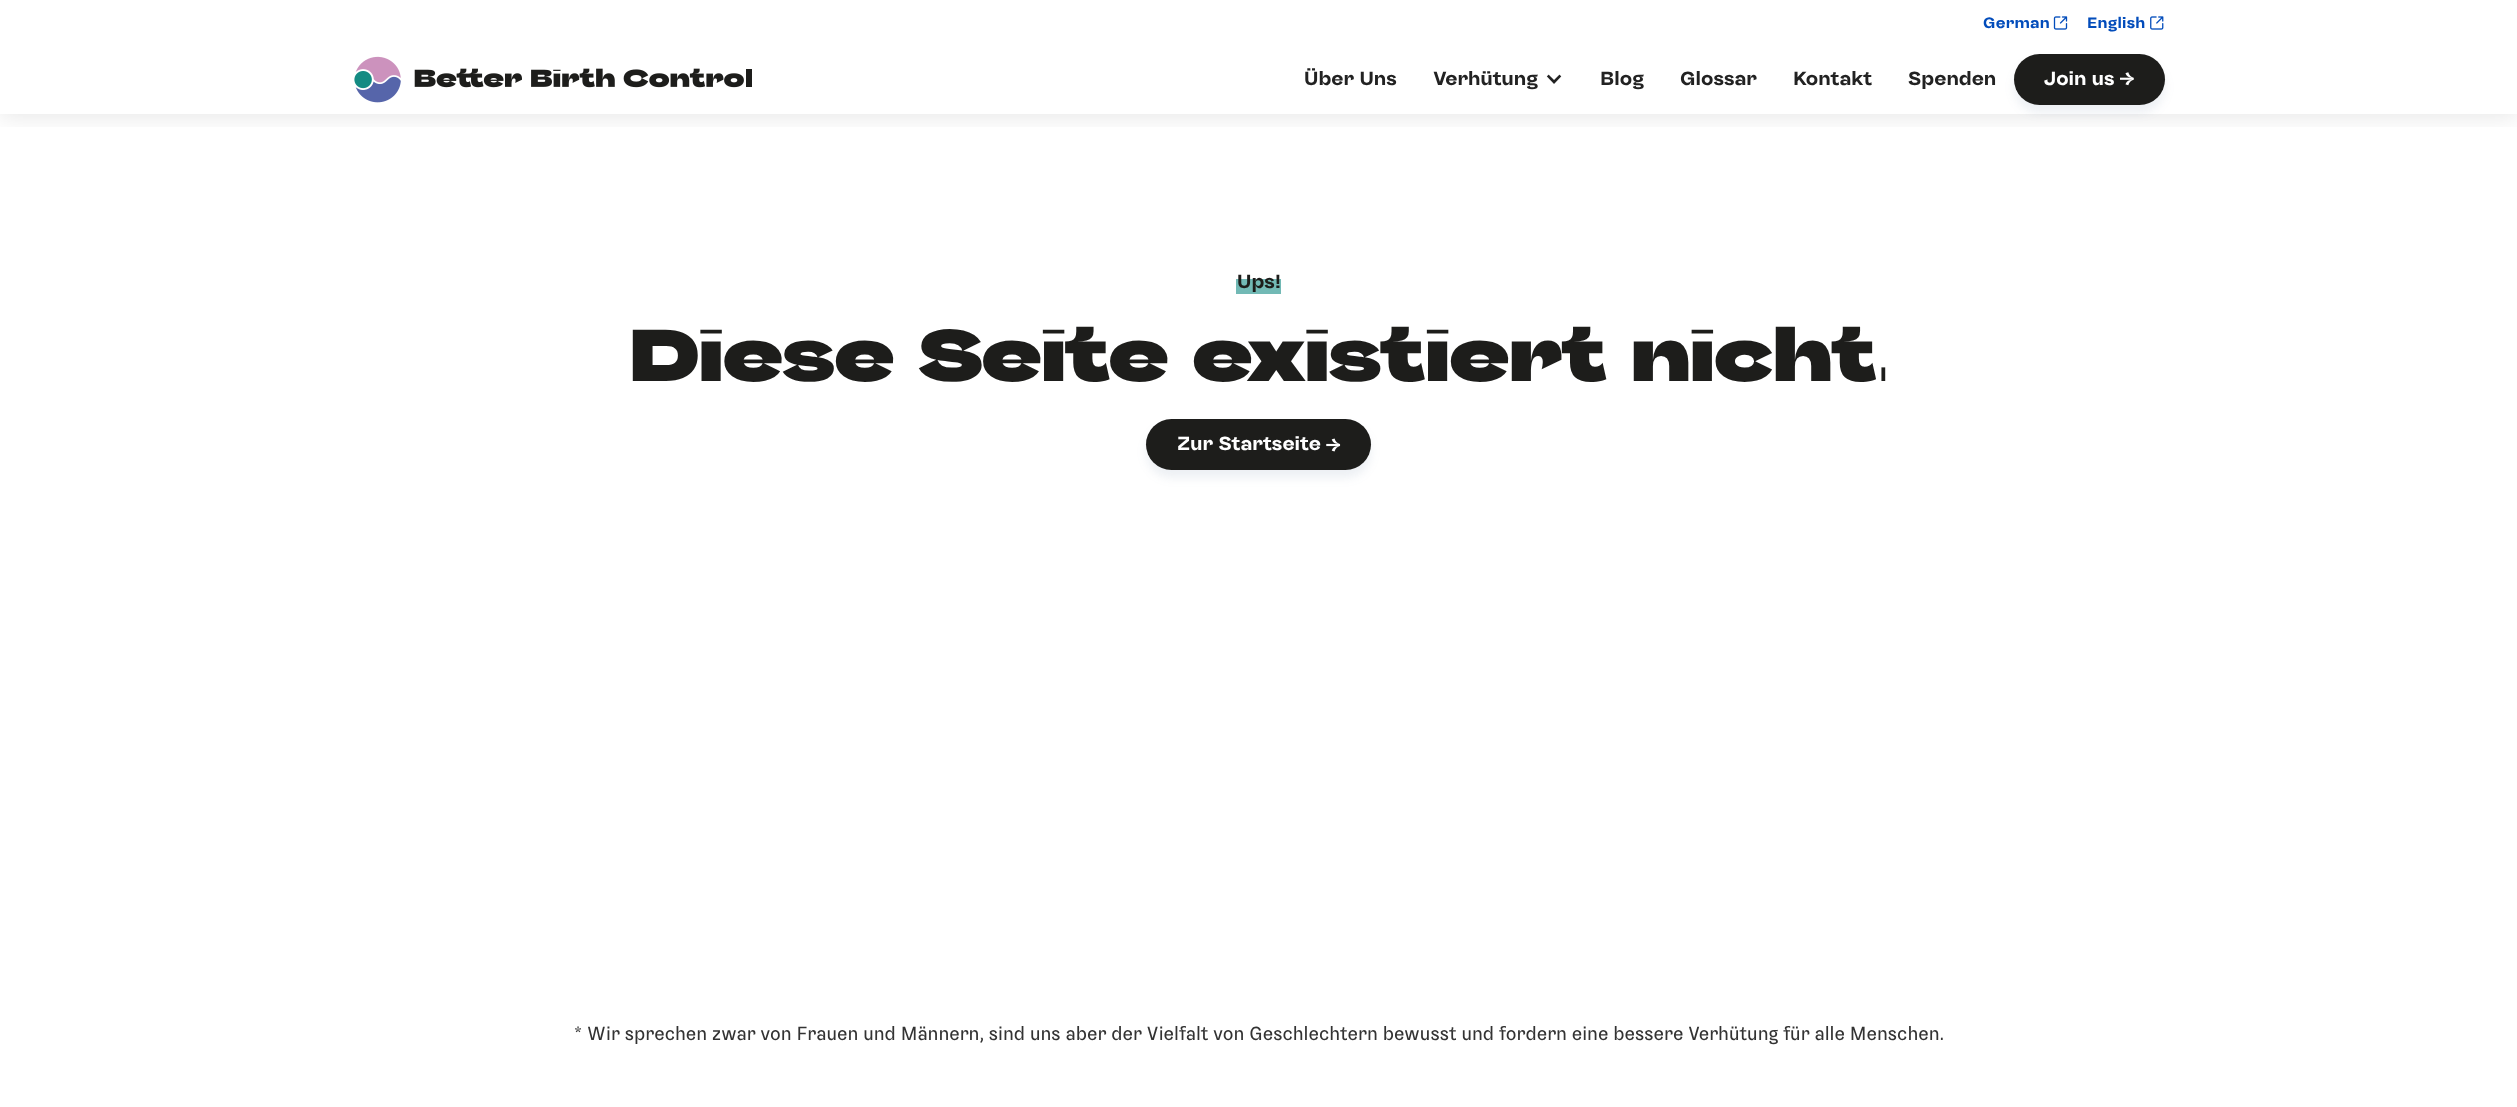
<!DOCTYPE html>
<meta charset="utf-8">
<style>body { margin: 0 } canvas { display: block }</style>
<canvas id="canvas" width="2517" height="1107"></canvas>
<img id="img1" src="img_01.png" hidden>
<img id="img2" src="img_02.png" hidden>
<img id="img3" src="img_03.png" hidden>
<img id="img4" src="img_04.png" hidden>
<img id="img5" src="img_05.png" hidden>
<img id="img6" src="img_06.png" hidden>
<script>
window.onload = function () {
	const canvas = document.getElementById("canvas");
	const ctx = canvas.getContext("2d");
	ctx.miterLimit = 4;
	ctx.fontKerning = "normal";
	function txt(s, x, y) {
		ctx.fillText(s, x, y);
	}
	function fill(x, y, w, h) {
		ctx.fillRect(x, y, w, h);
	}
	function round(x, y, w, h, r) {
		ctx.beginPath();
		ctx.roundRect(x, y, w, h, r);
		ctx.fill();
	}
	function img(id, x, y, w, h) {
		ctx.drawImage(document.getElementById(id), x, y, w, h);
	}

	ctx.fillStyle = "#FFFFFF";
	fill(0, 0, 2517, 1107);
	ctx.save();
	ctx.beginPath();
	ctx.rect(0, 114, 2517, 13);
	ctx.clip();
	ctx.fillStyle = "rgba(0, 0, 0, 0.1)";
	ctx.filter = "blur(12.5px)";
	ctx.beginPath();
	ctx.rect(0, 3, 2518, 113);
	ctx.fill();
	ctx.filter = "none";
	ctx.restore();
	img("img1", 2053, 16, 15, 14);
	img("img2", 2150, 16, 14, 14);
	img("img3", 354, 56, 398, 47);
	img("img4", 1546, 74, 16, 10);
	ctx.fillStyle = "rgba(82, 106, 150, 0.1)";
	ctx.filter = "blur(5px)";
	ctx.beginPath();
	ctx.roundRect(2014, 61, 151, 52, 26);
	ctx.fill();
	ctx.filter = "none";
	ctx.fillStyle = "#1D1D1B";
	round(2014, 54, 151, 51, 25.5);
	img("img5", 2120, 72, 14, 14);
	ctx.fillStyle = "#72B9B5";
	fill(1236, 279, 45, 15);
	ctx.fillStyle = "rgba(82, 106, 150, 0.1)";
	ctx.filter = "blur(5px)";
	ctx.beginPath();
	ctx.roundRect(1146, 426, 225, 52, 26);
	ctx.fill();
	ctx.filter = "none";
	ctx.fillStyle = "#1D1D1B";
	round(1146, 419, 225, 51, 25.5);
	img("img6", 1326, 438, 15, 14);
	ctx.letterSpacing = "0.25px";
	ctx.font = "bold 16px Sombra";
	ctx.fillStyle = "#024CBB";
	txt("German", 1983, 28);
	txt("English", 2087, 28);
	ctx.letterSpacing = "0px";
	ctx.font = "bold 20px Sombra";
	ctx.fillStyle = "#222222";
	txt("Über Uns", 1304, 85);
	txt("Verhütung", 1433, 85);
	txt("Blog", 1600, 85);
	txt("Glossar", 1680, 85);
	txt("Kontakt", 1793, 85);
	txt("Spenden", 1908, 85);
	ctx.fillStyle = "#FFFFFF";
	txt("Join us", 2044, 85);
	ctx.fillStyle = "#1D1D1B";
	txt("Ups!", 1237, 288);
	ctx.letterSpacing = "-0.75px";
	ctx.font = "900 77.5px Sombra";
	txt("Diese Seite existiert nicht.", 629, 381);
	ctx.letterSpacing = "0px";
	ctx.font = "bold 20px Sombra";
	ctx.fillStyle = "#FFFFFF";
	txt("Zur Startseite", 1177, 450);
	ctx.font = "20px Sombra";
	ctx.fillStyle = "#333333";
	txt("* Wir sprechen zwar von Frauen und Männern, sind uns aber der Vielfalt von Geschlechtern bewusst und fordern eine bessere Verhütung für alle Menschen.", 574, 1040);
};
</script>
